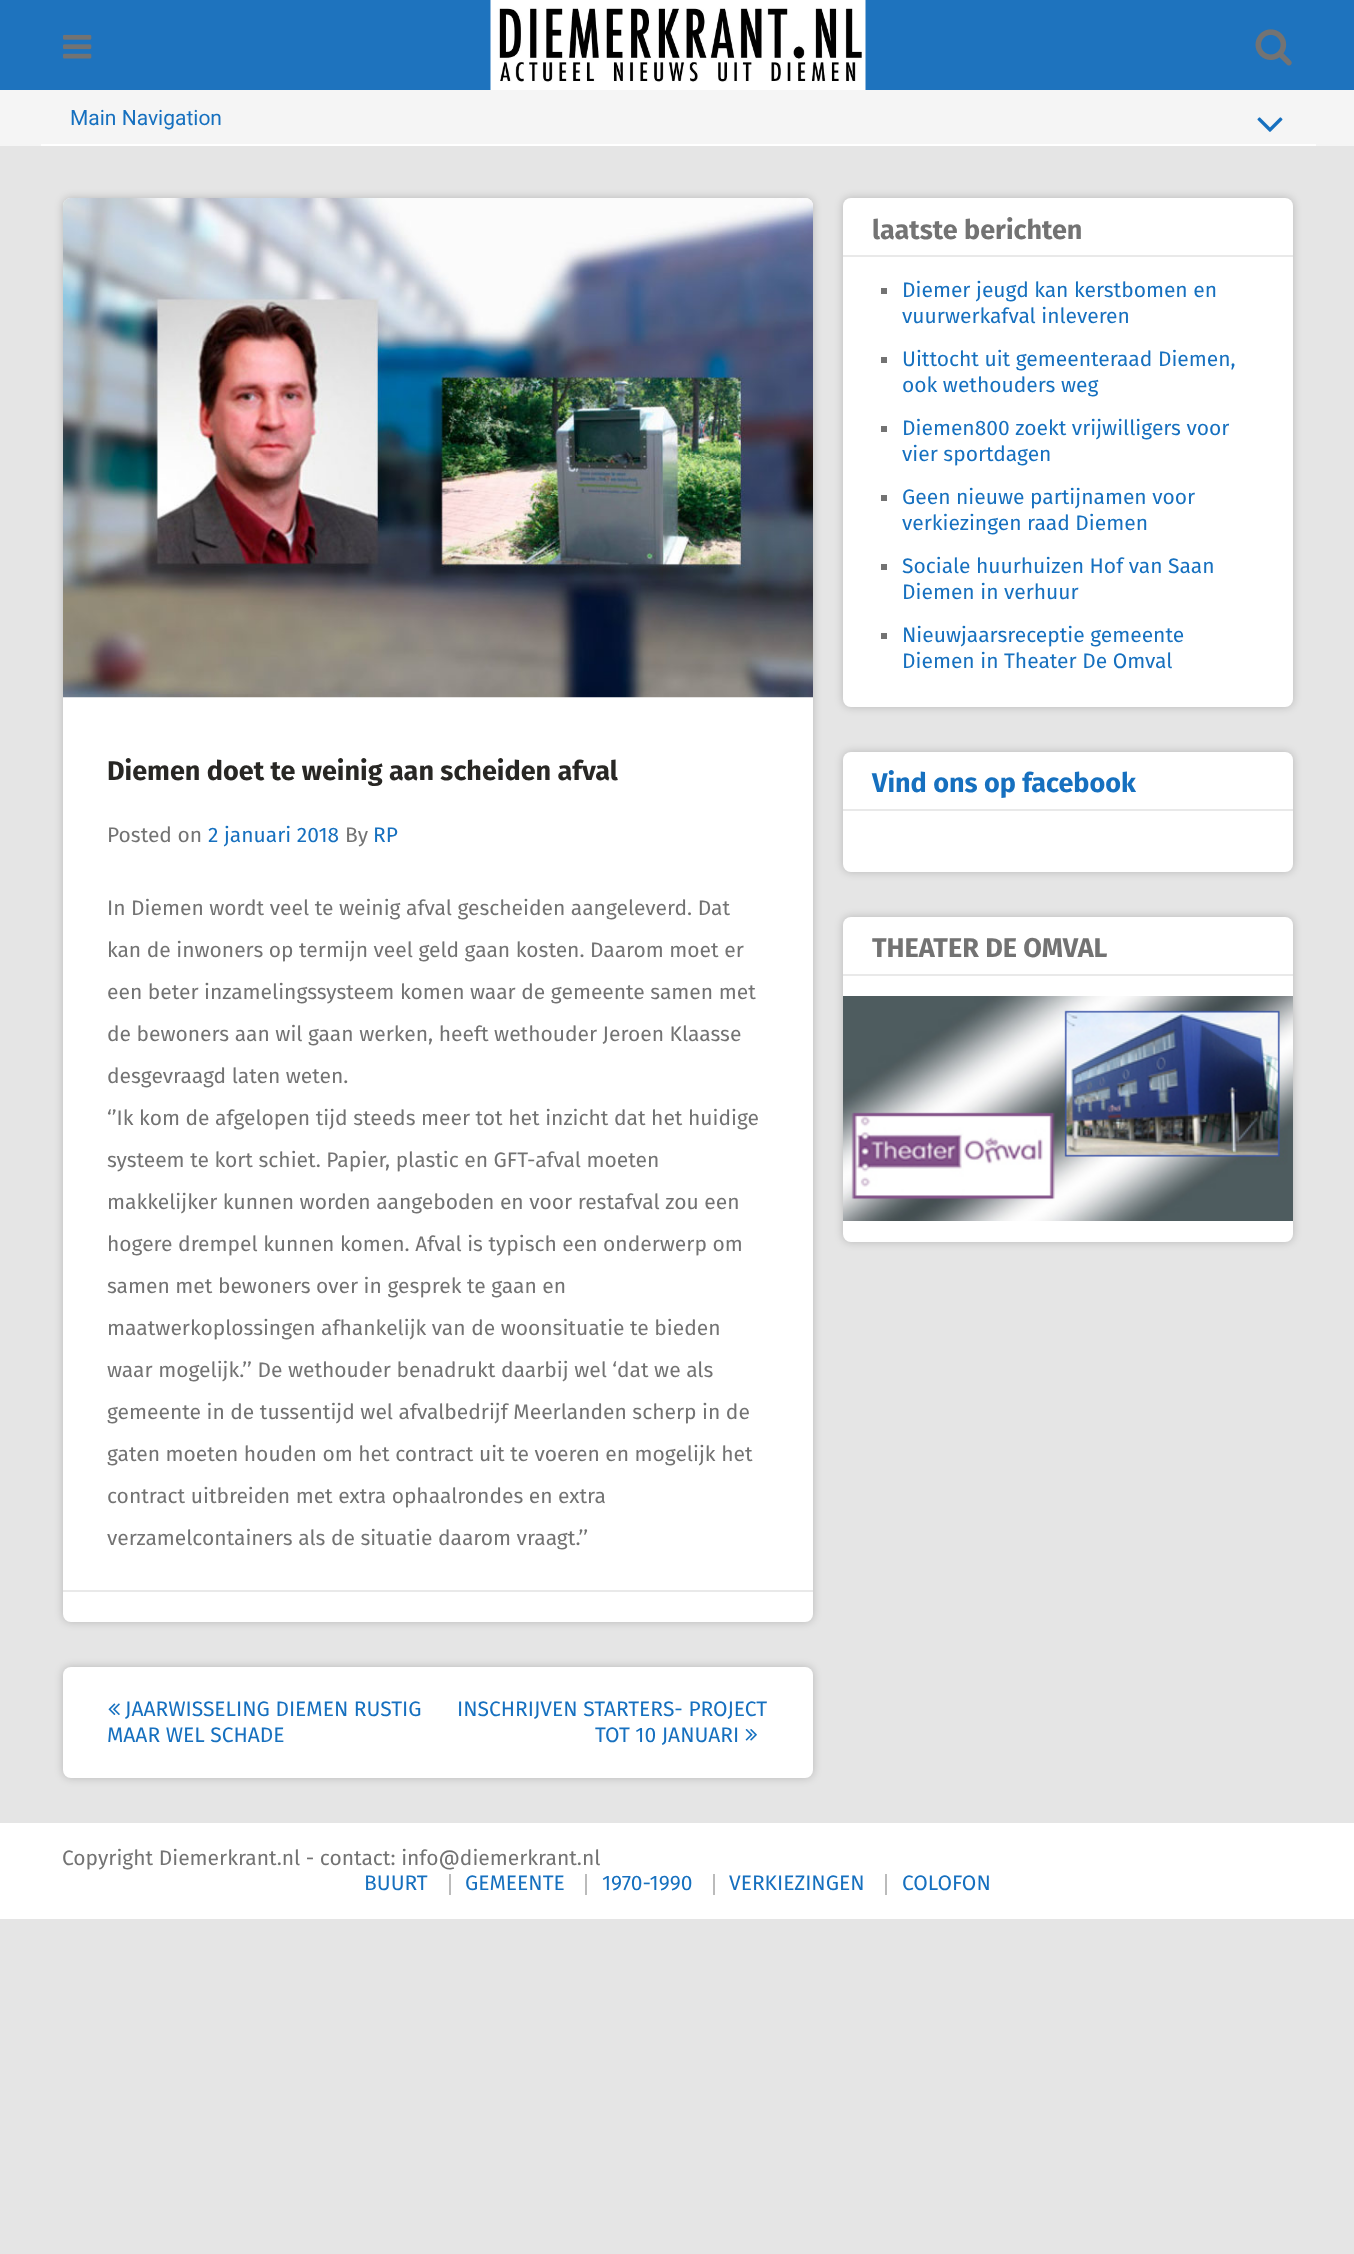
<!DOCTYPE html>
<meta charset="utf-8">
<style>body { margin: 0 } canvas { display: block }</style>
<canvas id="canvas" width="1354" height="2254"></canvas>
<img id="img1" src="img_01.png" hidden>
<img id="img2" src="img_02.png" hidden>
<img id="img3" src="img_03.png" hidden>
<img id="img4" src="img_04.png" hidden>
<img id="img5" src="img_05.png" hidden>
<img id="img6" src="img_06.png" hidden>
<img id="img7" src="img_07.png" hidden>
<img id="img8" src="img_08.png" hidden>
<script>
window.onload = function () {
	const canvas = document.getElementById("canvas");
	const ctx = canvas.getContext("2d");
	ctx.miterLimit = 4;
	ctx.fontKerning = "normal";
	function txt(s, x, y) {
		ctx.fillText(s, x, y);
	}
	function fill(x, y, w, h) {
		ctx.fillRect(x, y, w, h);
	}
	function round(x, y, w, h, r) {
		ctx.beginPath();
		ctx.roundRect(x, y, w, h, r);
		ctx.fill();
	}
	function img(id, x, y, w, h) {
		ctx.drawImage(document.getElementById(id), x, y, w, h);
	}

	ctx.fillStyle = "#E5E5E5";
	fill(0, 0, 1354, 2254);
	ctx.fillStyle = "#1E73BE";
	fill(0, 0, 1354, 90);
	img("img1", 63, 34, 29, 25);
	img("img2", 490, 0, 376, 90);
	img("img3", 1255, 29, 37, 37);
	ctx.fillStyle = "#F5F5F5";
	fill(0, 90, 1354, 56);
	ctx.fillStyle = "#FFFFFF";
	fill(41, 144, 1275, 2);
	img("img4", 1257, 117, 26, 15);
	ctx.fillStyle = "rgba(0, 0, 0, 0.2)";
	ctx.filter = "blur(4.5px)";
	ctx.beginPath();
	ctx.roundRect(843, 198, 450, 509, 8);
	ctx.fill();
	ctx.filter = "none";
	ctx.fillStyle = "#FFFFFF";
	round(843, 198, 450, 509, 8);
	ctx.fillStyle = "#E9E9E9";
	fill(843, 255, 450, 2);
	ctx.fillStyle = "#737373";
	fill(881, 288, 6, 6);
	fill(881, 357, 6, 6);
	fill(881, 426, 6, 6);
	fill(881, 495, 6, 6);
	fill(881, 564, 6, 6);
	fill(881, 633, 6, 6);
	ctx.fillStyle = "rgba(0, 0, 0, 0.2)";
	ctx.filter = "blur(4.5px)";
	ctx.beginPath();
	ctx.roundRect(843, 752, 450, 120, 8);
	ctx.fill();
	ctx.filter = "none";
	ctx.fillStyle = "#FFFFFF";
	round(843, 752, 450, 120, 8);
	ctx.fillStyle = "#E9E9E9";
	fill(843, 809, 450, 2);
	ctx.fillStyle = "rgba(0, 0, 0, 0.2)";
	ctx.filter = "blur(4.5px)";
	ctx.beginPath();
	ctx.roundRect(843, 917, 450, 325, 8);
	ctx.fill();
	ctx.filter = "none";
	ctx.fillStyle = "#FFFFFF";
	round(843, 917, 450, 325, 8);
	ctx.fillStyle = "#E9E9E9";
	fill(843, 974, 450, 2);
	img("img5", 843, 996, 450, 225);
	ctx.fillStyle = "rgba(0, 0, 0, 0.2)";
	ctx.filter = "blur(4.5px)";
	ctx.beginPath();
	ctx.roundRect(63, 198, 750, 1424, 8);
	ctx.fill();
	ctx.filter = "none";
	ctx.fillStyle = "#FFFFFF";
	round(63, 198, 750, 1424, 8);
	img("img6", 63, 198, 750, 500);
	ctx.fillStyle = "#E9E9E9";
	fill(63, 1590, 750, 2);
	ctx.fillStyle = "rgba(0, 0, 0, 0.2)";
	ctx.filter = "blur(4.5px)";
	ctx.beginPath();
	ctx.roundRect(63, 1667, 750, 111, 8);
	ctx.fill();
	ctx.filter = "none";
	ctx.fillStyle = "#FFFFFF";
	round(63, 1667, 750, 111, 8);
	img("img7", 108, 1703, 12, 12);
	img("img8", 745, 1729, 12, 12);
	fill(0, 1823, 1354, 96);
	ctx.fillStyle = "#BBBBBB";
	fill(449, 1874, 2, 21);
	fill(585, 1874, 2, 21);
	fill(713, 1874, 2, 21);
	fill(885, 1874, 2, 21);
	ctx.font = "21px Roboto";
	ctx.fillStyle = "#1670BF";
	txt("Main Navigation", 70, 125);
	ctx.font = "bold 27px Fira Sans";
	ctx.fillStyle = "#737373";
	txt("laatste berichten", 872, 239);
	ctx.font = "21px Fira Sans";
	ctx.fillStyle = "#1670BF";
	txt("Diemer jeugd kan kerstbomen en", 902, 297);
	txt("vuurwerkafval inleveren", 902, 323);
	txt("Uittocht uit gemeenteraad Diemen,", 902, 366);
	txt("ook wethouders weg", 902, 392);
	txt("Diemen800 zoekt vrijwilligers voor", 902, 435);
	txt("vier sportdagen", 902, 461);
	txt("Geen nieuwe partijnamen voor", 902, 504);
	txt("verkiezingen raad Diemen", 902, 530);
	txt("Sociale huurhuizen Hof van Saan", 902, 573);
	txt("Diemen in verhuur", 902, 599);
	txt("Nieuwjaarsreceptie gemeente", 902, 642);
	txt("Diemen in Theater De Omval", 902, 668);
	ctx.font = "bold 27px Fira Sans";
	txt("Vind ons op facebook", 872, 792);
	ctx.fillStyle = "#737373";
	txt("THEATER DE OMVAL", 872, 957);
	ctx.fillStyle = "#282724";
	txt("Diemen doet te weinig aan scheiden afval", 107, 780);
	ctx.font = "21px Fira Sans";
	ctx.fillStyle = "#737373";
	txt("Posted on", 107, 842);
	ctx.fillStyle = "#1670BF";
	txt("2 januari 2018", 208, 842);
	ctx.fillStyle = "#737373";
	txt("By", 345, 842);
	ctx.fillStyle = "#1670BF";
	txt("RP", 373, 842);
	ctx.fillStyle = "#737373";
	txt("In Diemen wordt veel te weinig afval gescheiden aangeleverd. Dat", 107, 915);
	txt("kan de inwoners op termijn veel geld gaan kosten. Daarom moet er", 107, 957);
	txt("een beter inzamelingssysteem komen waar de gemeente samen met", 107, 999);
	txt("de bewoners aan wil gaan werken, heeft wethouder Jeroen Klaasse", 107, 1041);
	txt("desgevraagd laten weten.", 107, 1083);
	txt("‘’Ik kom de afgelopen tijd steeds meer tot het inzicht dat het huidige", 107, 1125);
	txt("systeem te kort schiet. Papier, plastic en GFT-afval moeten", 107, 1167);
	txt("makkelijker kunnen worden aangeboden en voor restafval zou een", 107, 1209);
	txt("hogere drempel kunnen komen. Afval is typisch een onderwerp om", 107, 1251);
	txt("samen met bewoners over in gesprek te gaan en", 107, 1293);
	txt("maatwerkoplossingen afhankelijk van de woonsituatie te bieden", 107, 1335);
	txt("waar mogelijk.’’ De wethouder benadrukt daarbij wel ‘dat we als", 107, 1377);
	txt("gemeente in de tussentijd wel afvalbedrijf Meerlanden scherp in de", 107, 1419);
	txt("gaten moeten houden om het contract uit te voeren en mogelijk het", 107, 1461);
	txt("contract uitbreiden met extra ophaalrondes en extra", 107, 1503);
	txt("verzamelcontainers als de situatie daarom vraagt.’’", 107, 1545);
	ctx.fillStyle = "#1670BF";
	txt("JAARWISSELING DIEMEN RUSTIG", 125, 1716);
	txt("MAAR WEL SCHADE", 107, 1742);
	txt("INSCHRIJVEN STARTERS- PROJECT", 457, 1716);
	txt("TOT 10 JANUARI", 595, 1742);
	ctx.fillStyle = "#737373";
	txt("Copyright Diemerkrant.nl - contact: info@diemerkrant.nl", 62, 1865);
	ctx.fillStyle = "#1670BF";
	txt("BUURT", 364, 1890);
	txt("GEMEENTE", 465, 1890);
	txt("1970-1990", 602, 1890);
	txt("VERKIEZINGEN", 729, 1890);
	txt("COLOFON", 902, 1890);
};
</script>
